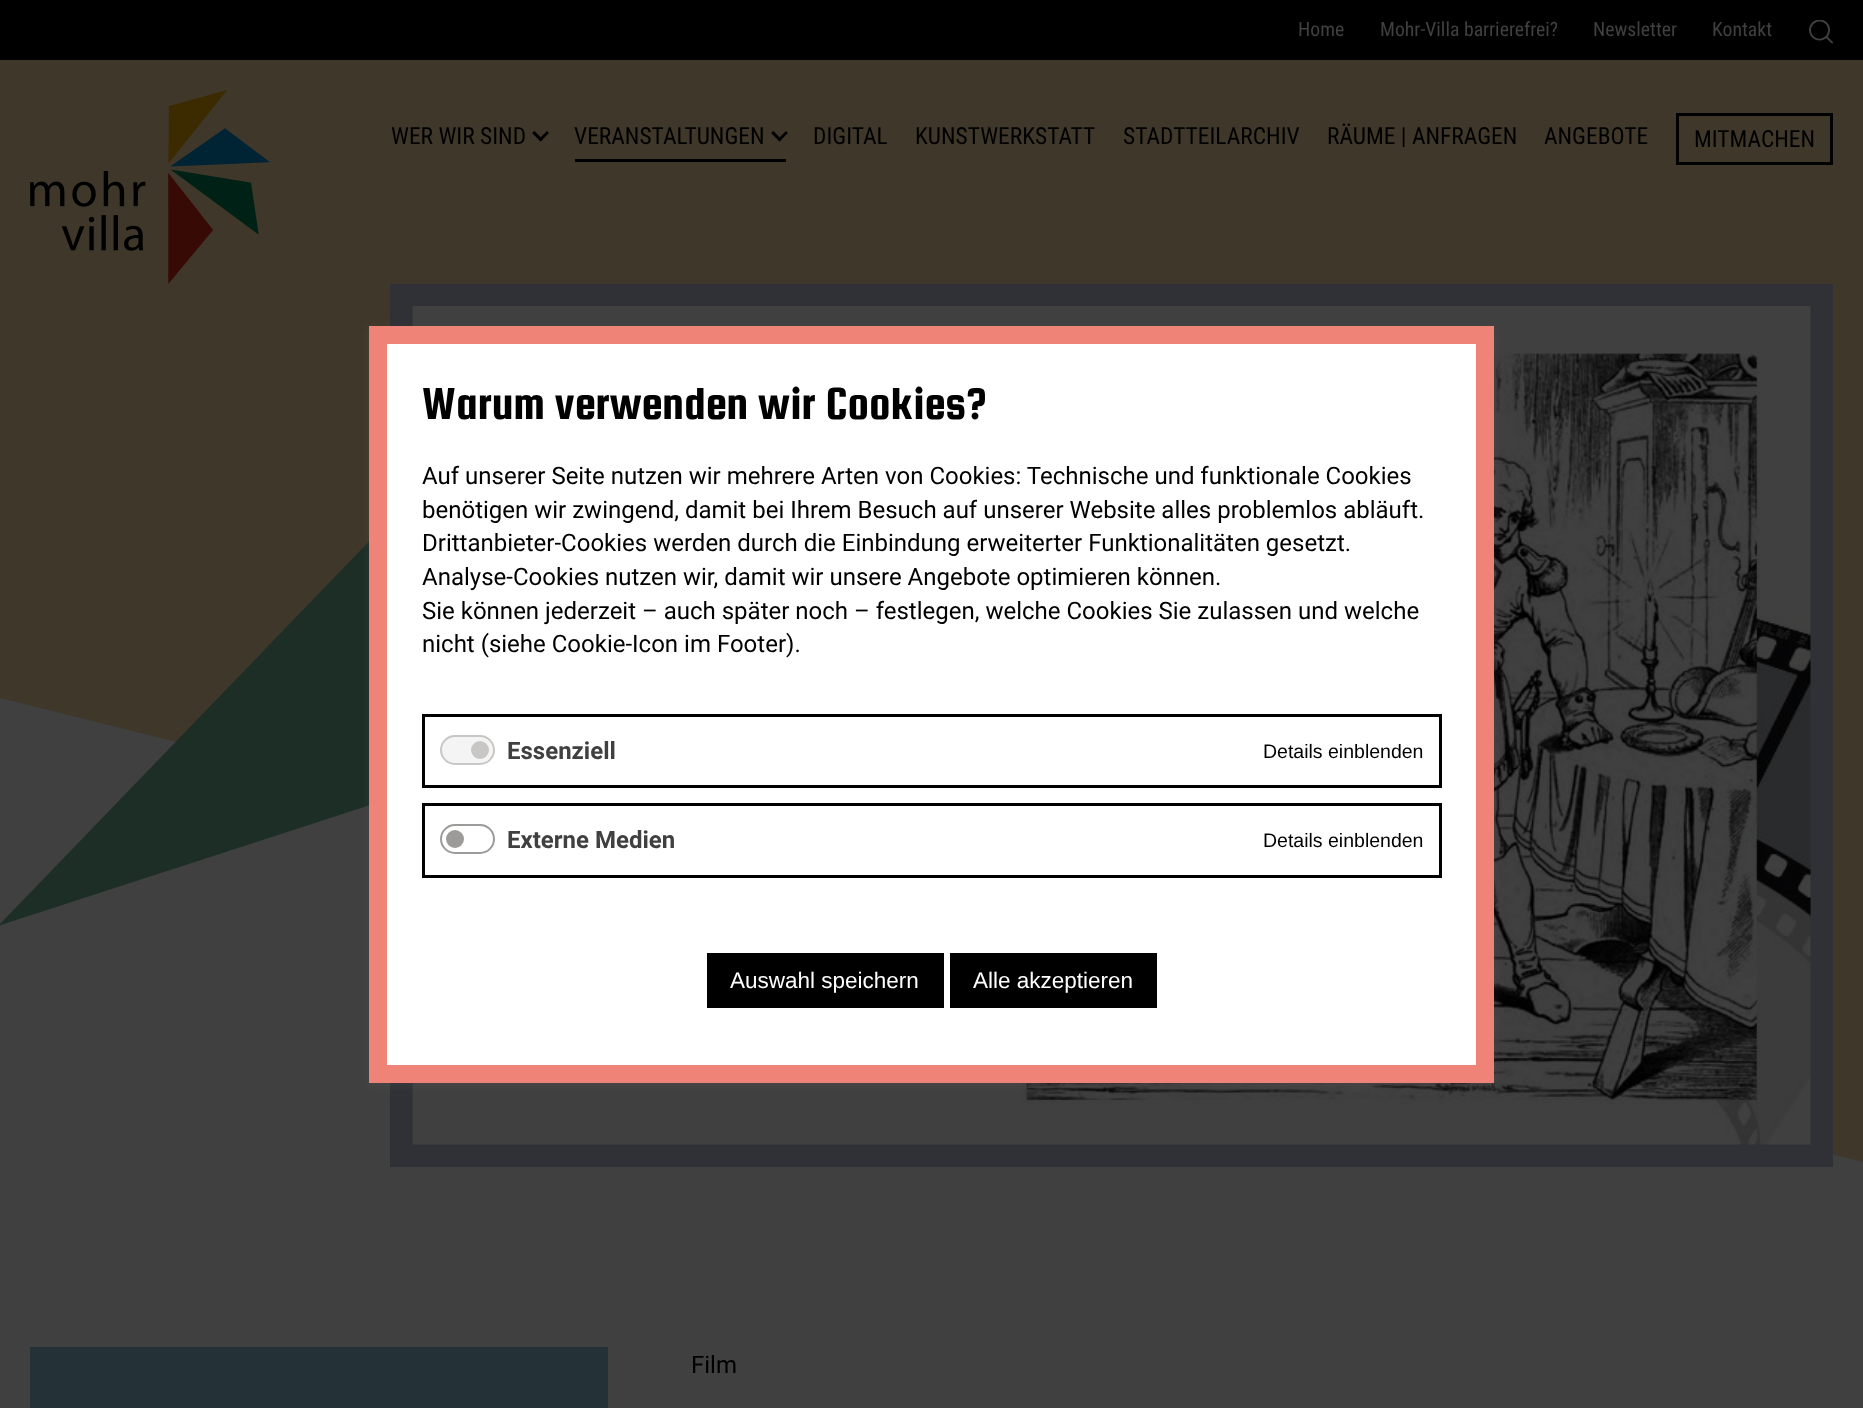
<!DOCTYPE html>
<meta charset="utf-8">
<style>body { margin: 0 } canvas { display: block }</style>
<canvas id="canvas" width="1863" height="1408"></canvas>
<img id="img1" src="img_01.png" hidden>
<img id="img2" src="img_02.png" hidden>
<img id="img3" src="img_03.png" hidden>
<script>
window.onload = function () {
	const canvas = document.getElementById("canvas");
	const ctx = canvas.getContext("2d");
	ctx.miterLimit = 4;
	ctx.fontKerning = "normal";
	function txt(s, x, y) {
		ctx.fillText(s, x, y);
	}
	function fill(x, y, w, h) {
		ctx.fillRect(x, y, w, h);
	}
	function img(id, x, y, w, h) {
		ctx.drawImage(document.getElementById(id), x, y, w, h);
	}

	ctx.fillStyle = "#404040";
	fill(0, 0, 1863, 1408);
	ctx.fillStyle = "#3F382A";
	ctx.beginPath();
	ctx.moveTo(0, -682);
	ctx.lineTo(1863, -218);
	ctx.lineTo(1863, 1162);
	ctx.lineTo(0, 698);
	ctx.closePath();
	ctx.fill();
	ctx.fillStyle = "#000000";
	fill(0, 0, 1863, 60);
	img("img1", 1809, 20, 24, 24);
	img("img2", 30, 90, 240, 194);
	ctx.beginPath();
	ctx.moveTo(538.5, 139.5);
	ctx.lineTo(547, 131);
	ctx.lineTo(549, 133);
	ctx.lineTo(540.5, 141.5);
	ctx.closePath();
	ctx.fill();
	ctx.beginPath();
	ctx.moveTo(532, 133);
	ctx.lineTo(534.5, 131);
	ctx.lineTo(543, 139.5);
	ctx.lineTo(540.5, 141.5);
	ctx.closePath();
	ctx.fill();
	ctx.beginPath();
	ctx.moveTo(777.5, 139.5);
	ctx.lineTo(786, 131);
	ctx.lineTo(788, 133);
	ctx.lineTo(779.5, 141.5);
	ctx.closePath();
	ctx.fill();
	ctx.beginPath();
	ctx.moveTo(771, 133);
	ctx.lineTo(773.5, 131);
	ctx.lineTo(781.5, 139.5);
	ctx.lineTo(779.5, 141.5);
	ctx.closePath();
	ctx.fill();
	fill(575, 159, 211, 3);
	ctx.strokeStyle = "#000000";
	ctx.lineWidth = 3;
	ctx.strokeRect(1677.5, 114.5, 154, 49);
	ctx.fillStyle = "#1D2E27";
	ctx.beginPath();
	ctx.moveTo(1060, 581);
	ctx.lineTo(-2, 926);
	ctx.lineTo(437, 471);
	ctx.closePath();
	ctx.fill();
	ctx.fillStyle = "#303136";
	fill(390, 284, 1443, 883);
	img("img3", 412, 306, 1399, 839);
	ctx.fillStyle = "#243136";
	fill(30, 1347, 578, 61);
	ctx.fillStyle = "rgba(99, 99, 99, 0.2)";
	ctx.filter = "blur(6px)";
	ctx.beginPath();
	ctx.rect(369, 329, 1125, 757);
	ctx.fill();
	ctx.filter = "none";
	ctx.fillStyle = "#FFFFFF";
	ctx.beginPath();
	ctx.rect(378, 335, 1107, 739);
	ctx.fill();
	ctx.strokeStyle = "#EF8377";
	ctx.lineWidth = 18;
	ctx.stroke();
	ctx.strokeStyle = "#000000";
	ctx.lineWidth = 3;
	ctx.strokeRect(423.5, 715.5, 1017, 71);
	ctx.fillStyle = "#F4F4F4";
	ctx.beginPath();
	ctx.roundRect(441, 736, 53, 28, 14);
	ctx.fill();
	ctx.strokeStyle = "#C8C7C5";
	ctx.lineWidth = 2;
	ctx.stroke();
	ctx.fillStyle = "#C8C7C5";
	ctx.beginPath();
	ctx.arc(480, 750, 9, 0, Math.PI * 2);
	ctx.fill();
	ctx.strokeStyle = "#000000";
	ctx.lineWidth = 3;
	ctx.strokeRect(423.5, 804.5, 1017, 72);
	ctx.beginPath();
	ctx.roundRect(441, 825, 53, 28, 14);
	ctx.strokeStyle = "#9C9B99";
	ctx.lineWidth = 2;
	ctx.stroke();
	ctx.fillStyle = "#9C9B99";
	ctx.beginPath();
	ctx.arc(455, 839, 9, 0, Math.PI * 2);
	ctx.fill();
	ctx.fillStyle = "#000000";
	fill(707, 953, 237, 55);
	fill(950, 953, 207, 55);
	ctx.font = "19.75px Roboto Condensed";
	ctx.fillStyle = "#404040";
	txt("Home", 1298, 36);
	txt("Mohr-Villa barrierefrei?", 1380, 36);
	txt("Newsletter", 1593, 36);
	txt("Kontakt", 1712, 36);
	ctx.font = "23.5px Roboto Condensed";
	ctx.fillStyle = "#000000";
	txt("WER WIR SIND", 391, 144);
	txt("VERANSTALTUNGEN", 574, 144);
	txt("DIGITAL", 813, 144);
	txt("KUNSTWERKSTATT", 915, 144);
	txt("STADTTEILARCHIV", 1123, 144);
	txt("RÄUME | ANFRAGEN", 1327, 144);
	txt("ANGEBOTE", 1544, 144);
	txt("MITMACHEN", 1694, 147);
	ctx.font = "24px Roboto";
	txt("Film", 691, 1373);
	ctx.font = "48px Squada One";
	txt("Warum verwenden wir Cookies?", 422, 419);
	ctx.font = "24px Roboto";
	txt("Auf unserer Seite nutzen wir mehrere Arten von Cookies: Technische und funktionale Cookies", 422, 484);
	txt("benötigen wir zwingend, damit bei Ihrem Besuch auf unserer Website alles problemlos abläuft.", 422, 518);
	txt("Drittanbieter-Cookies werden durch die Einbindung erweiterter Funktionalitäten gesetzt.", 422, 551);
	txt("Analyse-Cookies nutzen wir, damit wir unsere Angebote optimieren können.", 422, 585);
	txt("Sie können jederzeit – auch später noch – festlegen, welche Cookies Sie zulassen und welche", 422, 619);
	txt("nicht (siehe Cookie-Icon im Footer).", 422, 652);
	ctx.font = "bold 24px Roboto";
	ctx.fillStyle = "#404040";
	txt("Essenziell", 507, 759);
	ctx.font = "19.5px Liberation Sans";
	ctx.fillStyle = "#000000";
	txt("Details einblenden", 1263, 758);
	ctx.font = "bold 24px Roboto";
	ctx.fillStyle = "#404040";
	txt("Externe Medien", 507, 848);
	ctx.font = "19.5px Liberation Sans";
	ctx.fillStyle = "#000000";
	txt("Details einblenden", 1263, 847);
	ctx.font = "22.5px Liberation Sans";
	ctx.fillStyle = "#FFFFFF";
	txt("Auswahl speichern", 730, 988);
	txt("Alle akzeptieren", 973, 988);
};
</script>
